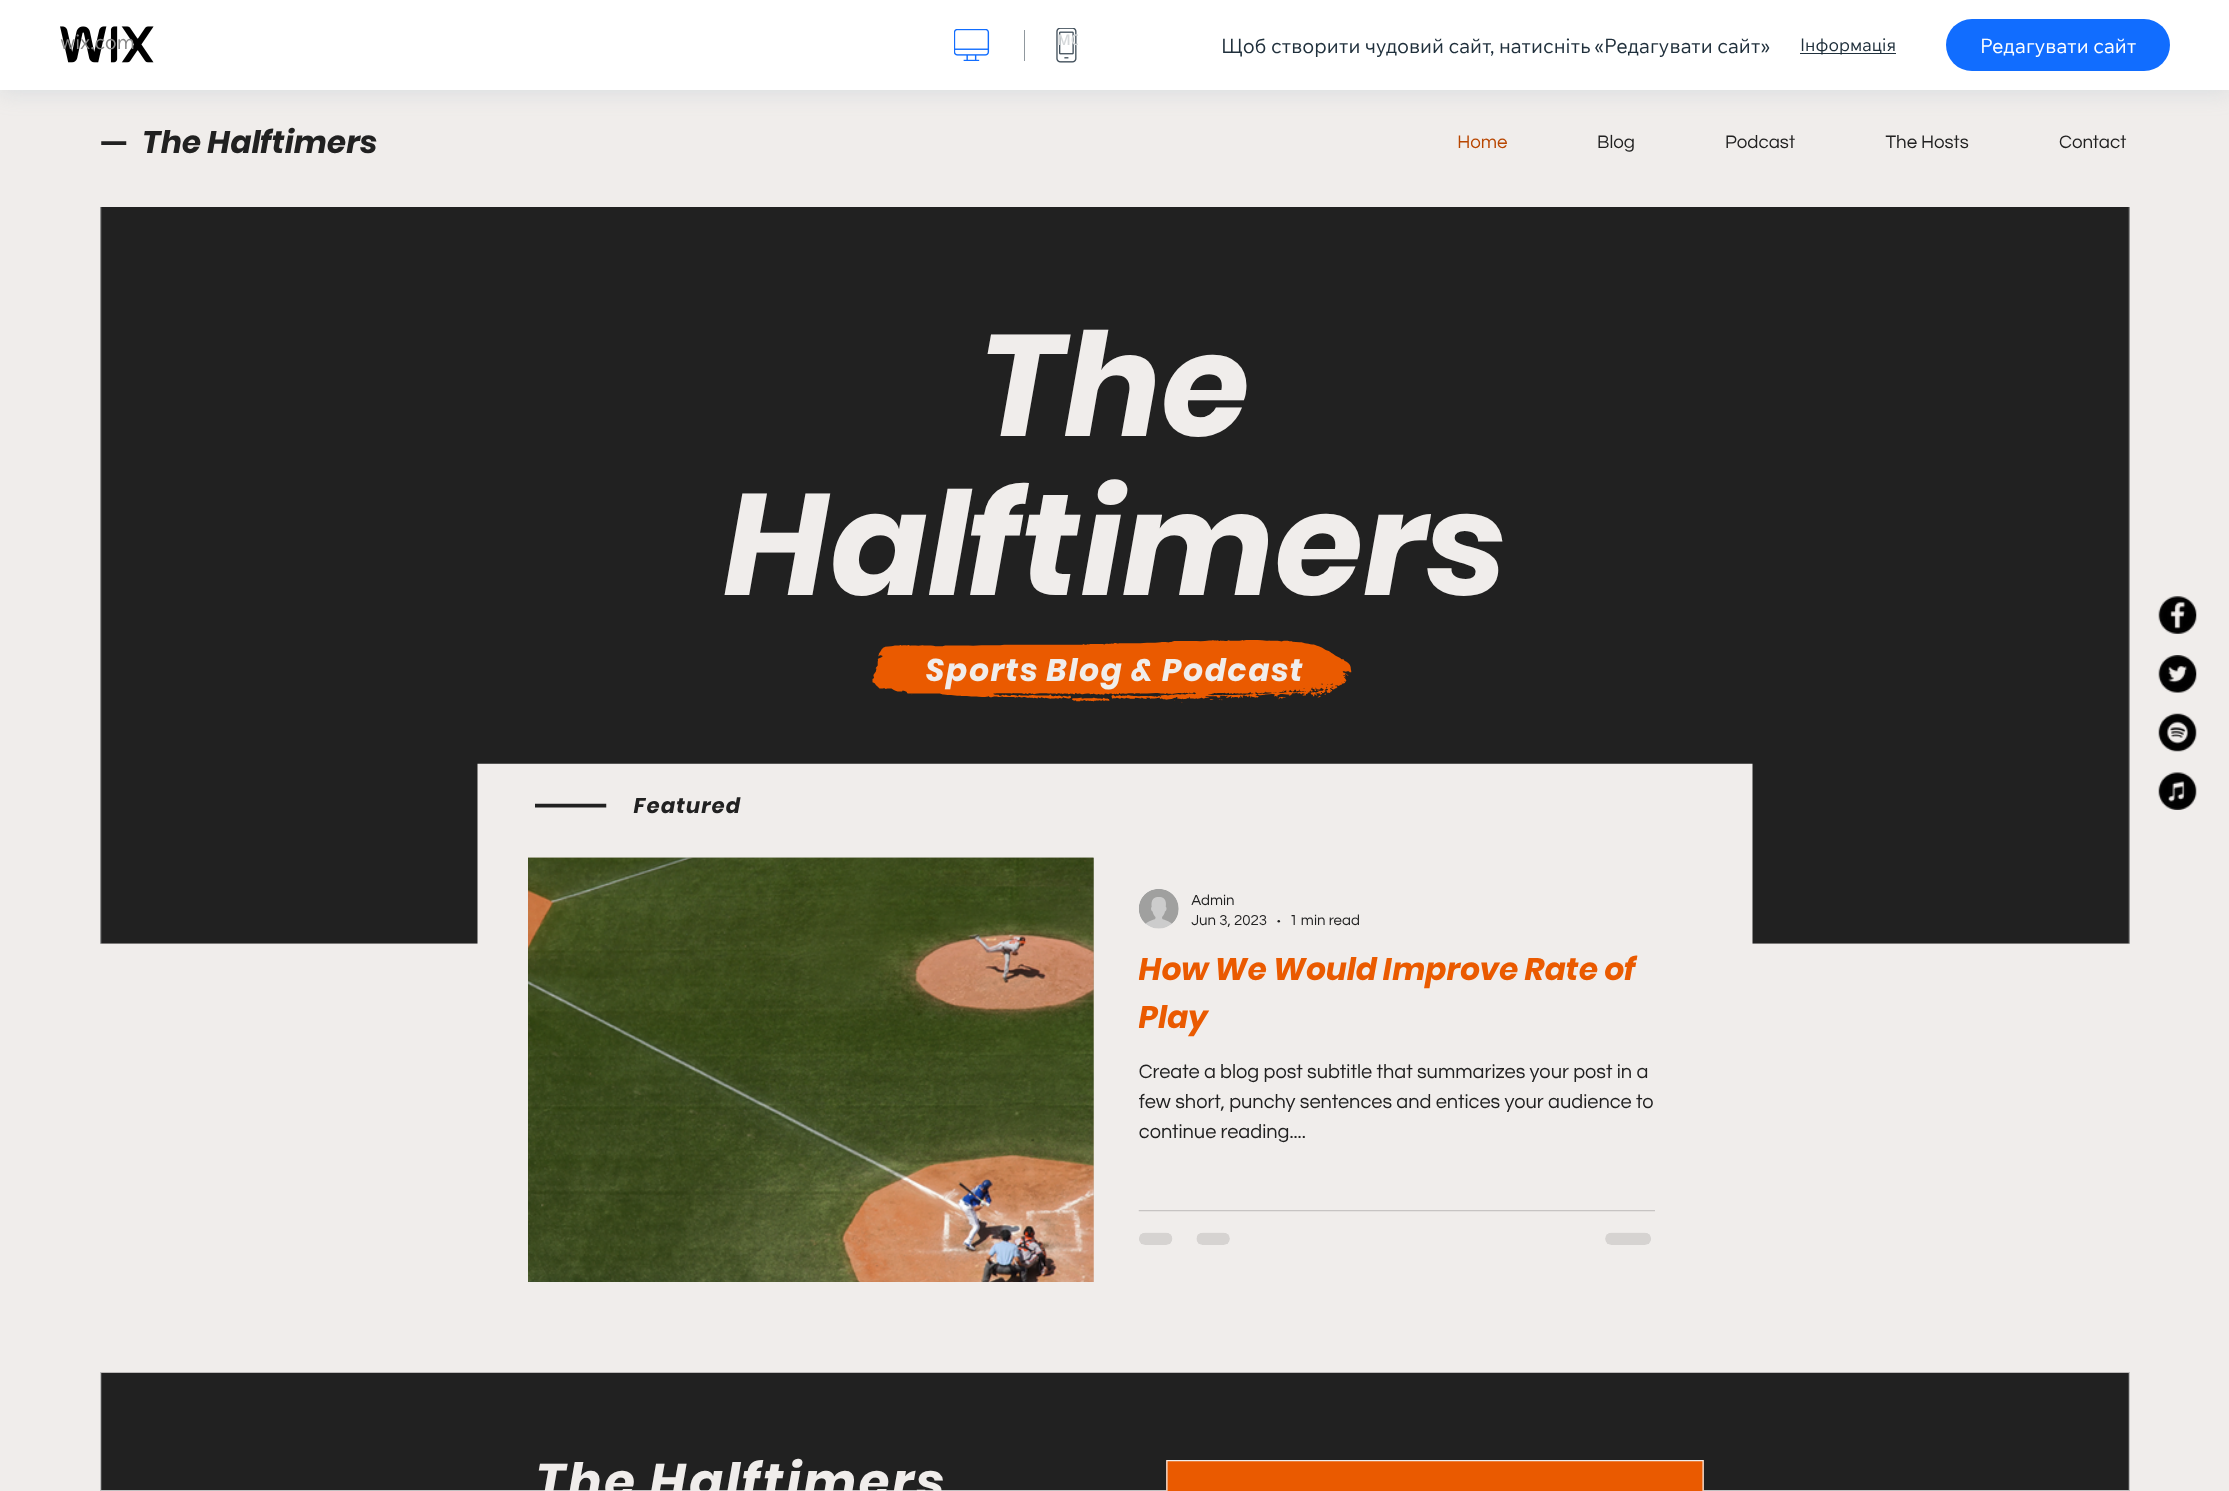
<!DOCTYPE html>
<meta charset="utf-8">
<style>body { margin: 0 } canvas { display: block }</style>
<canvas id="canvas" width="2229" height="1491"></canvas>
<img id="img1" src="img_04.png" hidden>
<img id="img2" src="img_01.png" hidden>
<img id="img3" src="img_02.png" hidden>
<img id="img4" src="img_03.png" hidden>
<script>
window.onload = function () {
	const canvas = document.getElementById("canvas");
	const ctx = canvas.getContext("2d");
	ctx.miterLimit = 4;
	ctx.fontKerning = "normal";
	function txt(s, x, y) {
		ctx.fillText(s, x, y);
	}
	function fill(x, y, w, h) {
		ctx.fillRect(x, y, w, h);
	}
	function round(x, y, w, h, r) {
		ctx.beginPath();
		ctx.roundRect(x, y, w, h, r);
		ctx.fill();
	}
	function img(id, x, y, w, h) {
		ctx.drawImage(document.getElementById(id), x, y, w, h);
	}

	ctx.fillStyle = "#FFFFFF";
	fill(0, 0, 2229, 1491);
	img("img1", 0, 90, 2229, 1401);
	ctx.fillStyle = "rgba(129, 162, 182, 0.2)";
	ctx.filter = "blur(11px)";
	ctx.beginPath();
	ctx.rect(0, 3, 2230, 90);
	ctx.fill();
	ctx.filter = "none";
	ctx.fillStyle = "#FFFFFF";
	fill(0, 0, 2229, 90);
	img("img2", 60, 26, 94, 37);
	img("img3", 954, 29, 36, 32);
	ctx.fillStyle = "#90989E";
	fill(1024, 30, 1, 31);
	img("img4", 1056, 28, 21, 35);
	ctx.fillStyle = "#20303C";
	fill(1800, 53, 96, 1);
	ctx.fillStyle = "#116DFF";
	round(1946, 19, 224, 52, 26);
	ctx.font = "20px Wix Madefor Text";
	ctx.fillStyle = "#878787";
	txt("wix.com", 60, 49);
	ctx.save();
	ctx.beginPath();
	ctx.rect(1056, 28, 22, 35);
	ctx.clip();
	ctx.font = "20px Liberation Sans";
	ctx.fillStyle = "#D5D8DA";
	txt("мо", 1057, 45);
	ctx.restore();
	ctx.fillStyle = "#20303C";
	txt("Щоб створити чудовий сайт, натисніть «Редагувати сайт»", 1221, 53);
	ctx.font = "17.5px Wix Madefor Text";
	txt("Інформація", 1800, 51);
	ctx.font = "20px Wix Madefor Text";
	ctx.fillStyle = "#FFFFFF";
	txt("Редагувати сайт", 1980, 53);
};
</script>
